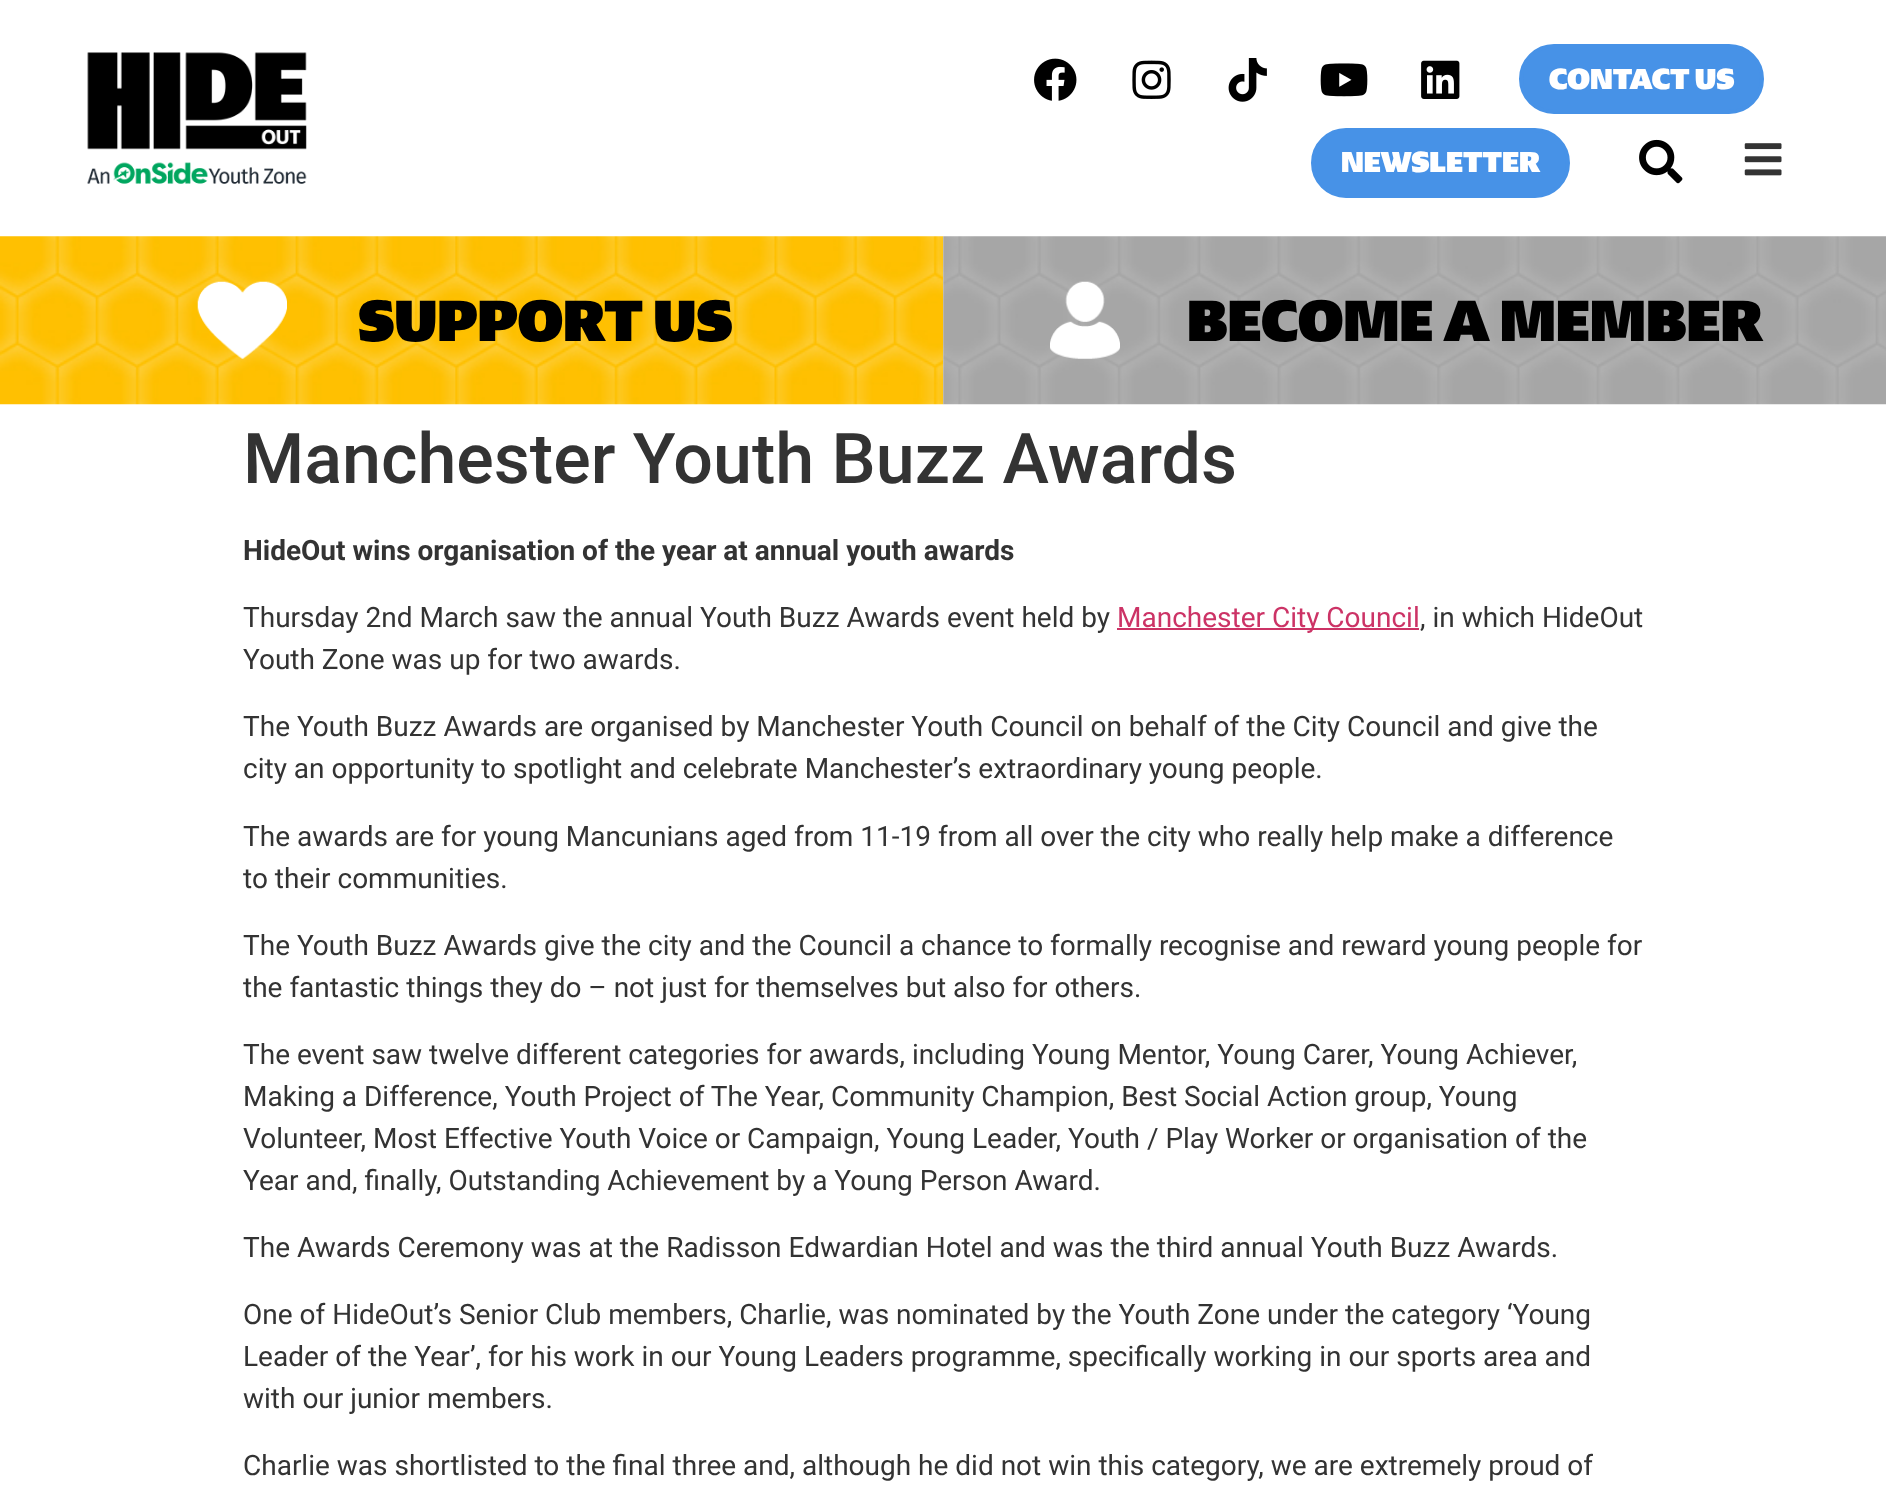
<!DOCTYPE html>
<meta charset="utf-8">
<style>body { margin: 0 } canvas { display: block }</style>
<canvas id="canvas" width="1886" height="1486"></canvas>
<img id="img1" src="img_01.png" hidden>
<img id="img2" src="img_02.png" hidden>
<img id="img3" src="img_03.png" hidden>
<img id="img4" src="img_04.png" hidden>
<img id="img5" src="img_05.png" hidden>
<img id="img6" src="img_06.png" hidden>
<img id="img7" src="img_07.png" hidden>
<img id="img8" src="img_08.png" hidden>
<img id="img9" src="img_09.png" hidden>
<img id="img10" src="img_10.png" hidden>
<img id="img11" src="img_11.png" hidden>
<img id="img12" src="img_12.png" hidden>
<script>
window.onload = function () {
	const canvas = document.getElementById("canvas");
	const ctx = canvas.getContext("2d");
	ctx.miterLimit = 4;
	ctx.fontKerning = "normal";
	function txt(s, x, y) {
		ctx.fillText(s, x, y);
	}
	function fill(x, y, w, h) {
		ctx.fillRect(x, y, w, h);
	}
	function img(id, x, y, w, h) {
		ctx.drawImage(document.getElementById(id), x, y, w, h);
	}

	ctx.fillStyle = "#FFFFFF";
	fill(0, 0, 1886, 1486);
	img("img1", 87, 52, 220, 132);
	img("img2", 1034, 58, 43, 43);
	img("img3", 1132, 60, 39, 39);
	img("img4", 1228, 58, 39, 44);
	img("img5", 1320, 63, 48, 34);
	img("img6", 1421, 60, 39, 39);
	ctx.fillStyle = "#4792E7";
	ctx.beginPath();
	ctx.roundRect(1521, 46, 241, 66, 33);
	ctx.fill();
	ctx.strokeStyle = "#4792E7";
	ctx.lineWidth = 4;
	ctx.stroke();
	ctx.beginPath();
	ctx.roundRect(1313, 130, 255, 66, 33);
	ctx.fill();
	ctx.stroke();
	img("img7", 1639, 139, 44, 45);
	img("img8", 1744, 143, 38, 33);
	img("img9", 0, 236, 944, 169);
	img("img10", 197, 281, 90, 78);
	img("img11", 943, 236, 943, 169);
	img("img12", 1050, 281, 70, 78);
	ctx.fillStyle = "#CC3366";
	fill(1117, 628, 302, 2);
	ctx.font = "900 28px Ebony";
	ctx.fillStyle = "#FFFFFF";
	txt("CONTACT US", 1549, 89);
	txt("NEWSLETTER", 1341, 172);
	ctx.font = "900 56px Ebony";
	ctx.fillStyle = "#000000";
	txt("SUPPORT US", 358, 341);
	txt("BECOME A MEMBER", 1187, 341);
	ctx.font = "500 70px Roboto";
	ctx.fillStyle = "#333333";
	txt("Manchester Youth Buzz Awards", 243, 483);
	ctx.font = "bold 28px Roboto";
	txt("HideOut wins organisation of the year at annual youth awards", 243, 560);
	ctx.font = "28px Roboto";
	txt("Thursday 2nd March saw the annual Youth Buzz Awards event held by", 243, 627);
	ctx.fillStyle = "#CC3366";
	txt("Manchester City Council", 1117, 627);
	ctx.fillStyle = "#333333";
	txt(", in which HideOut", 1420, 627);
	txt("Youth Zone was up for two awards.", 243, 669);
	txt("The Youth Buzz Awards are organised by Manchester Youth Council on behalf of the City Council and give the", 243, 736);
	txt("city an opportunity to spotlight and celebrate Manchester’s extraordinary young people.", 243, 778);
	txt("The awards are for young Mancunians aged from 11-19 from all over the city who really help make a difference", 243, 846);
	txt("to their communities.", 243, 888);
	txt("The Youth Buzz Awards give the city and the Council a chance to formally recognise and reward young people for", 243, 955);
	txt("the fantastic things they do – not just for themselves but also for others.", 243, 997);
	txt("The event saw twelve different categories for awards, including Young Mentor, Young Carer, Young Achiever,", 243, 1064);
	txt("Making a Difference, Youth Project of The Year, Community Champion, Best Social Action group, Young", 243, 1106);
	txt("Volunteer, Most Effective Youth Voice or Campaign, Young Leader, Youth / Play Worker or organisation of the", 243, 1148);
	txt("Year and, finally, Outstanding Achievement by a Young Person Award.", 243, 1190);
	txt("The Awards Ceremony was at the Radisson Edwardian Hotel and was the third annual Youth Buzz Awards.", 243, 1257);
	txt("One of HideOut’s Senior Club members, Charlie, was nominated by the Youth Zone under the category ‘Young", 243, 1324);
	txt("Leader of the Year’, for his work in our Young Leaders programme, specifically working in our sports area and", 243, 1366);
	txt("with our junior members.", 243, 1408);
	txt("Charlie was shortlisted to the final three and, although he did not win this category, we are extremely proud of", 243, 1475);
};
</script>
